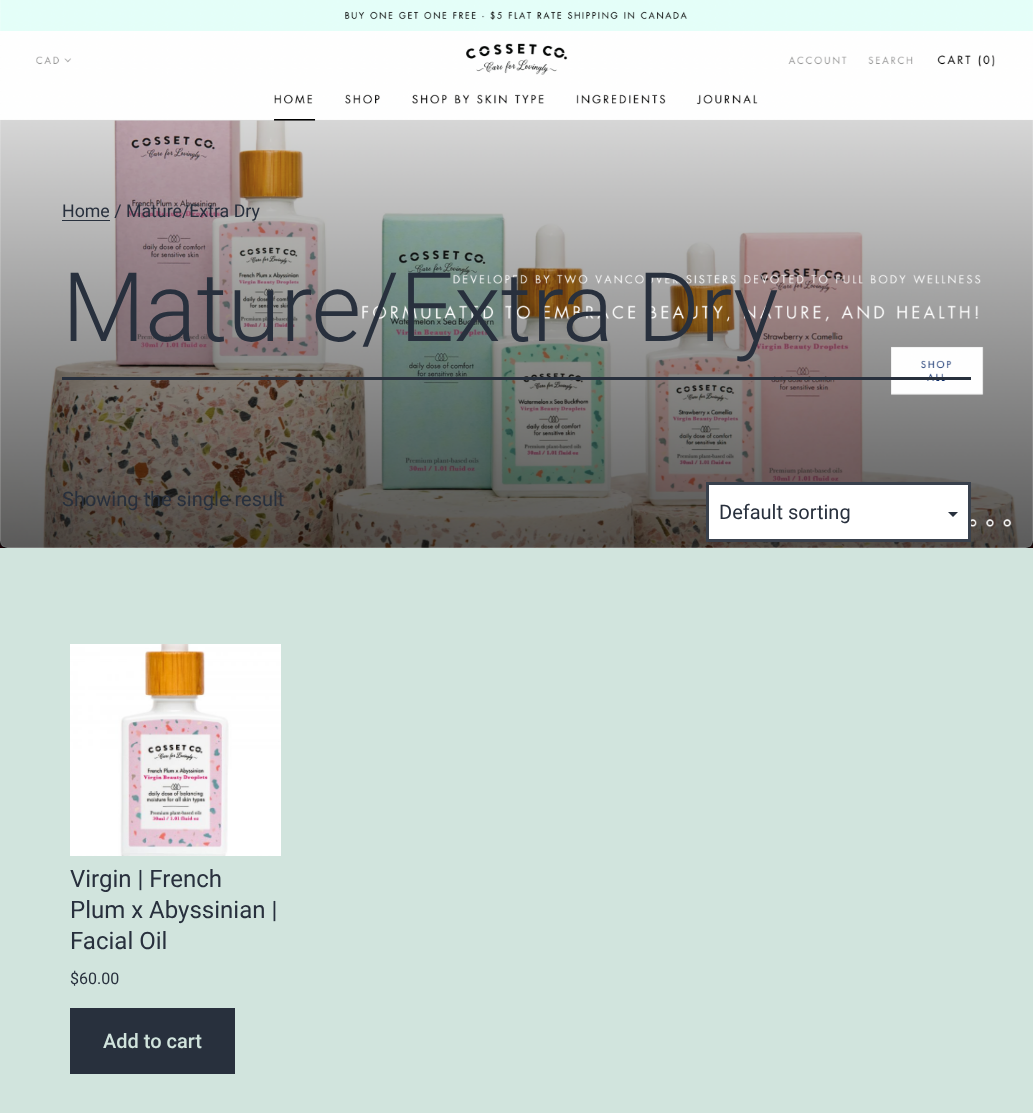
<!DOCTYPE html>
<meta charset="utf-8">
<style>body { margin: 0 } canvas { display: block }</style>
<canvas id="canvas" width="1033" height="1113"></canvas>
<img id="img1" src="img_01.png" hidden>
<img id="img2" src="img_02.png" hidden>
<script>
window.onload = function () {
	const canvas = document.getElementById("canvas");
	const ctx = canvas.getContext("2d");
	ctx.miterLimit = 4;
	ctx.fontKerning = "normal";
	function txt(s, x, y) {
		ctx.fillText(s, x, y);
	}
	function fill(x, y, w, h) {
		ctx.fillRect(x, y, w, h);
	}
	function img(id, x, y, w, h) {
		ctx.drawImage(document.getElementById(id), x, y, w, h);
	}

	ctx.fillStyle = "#D1E4DD";
	fill(0, 0, 1033, 1113);
	img("img1", 0, 0, 1033, 548);
	ctx.fillStyle = "#28303D";
	fill(62, 220, 48, 1);
	fill(62, 377, 909, 3);
	ctx.fillStyle = "#FFFFFF";
	fill(709, 485, 259, 54);
	ctx.fillStyle = "#28303D";
	ctx.beginPath();
	ctx.moveTo(948, 512);
	ctx.lineTo(958, 512);
	ctx.lineTo(953, 517);
	ctx.closePath();
	ctx.fill();
	ctx.strokeStyle = "#39414D";
	ctx.lineWidth = 3;
	ctx.strokeRect(707.5, 483.5, 262, 57);
	img("img2", 70, 644, 211, 212);
	fill(70, 1008, 165, 66);
	ctx.font = "17.75px Roboto";
	txt("Home / Mature/Extra Dry", 62, 217);
	ctx.font = "300 96px Roboto";
	txt("Mature/Extra Dry", 62, 341);
	ctx.font = "20px Roboto";
	txt("Showing the single result", 62, 506);
	txt("Default sorting", 719, 519);
	ctx.font = "24px Roboto";
	txt("Virgin | French", 70, 887);
	txt("Plum x Abyssinian |", 70, 918);
	txt("Facial Oil", 70, 949);
	ctx.font = "16px Roboto";
	txt("$60.00", 70, 984);
	ctx.font = "500 20px Roboto";
	ctx.fillStyle = "#D1E4DD";
	txt("Add to cart", 103, 1048);
};
</script>
